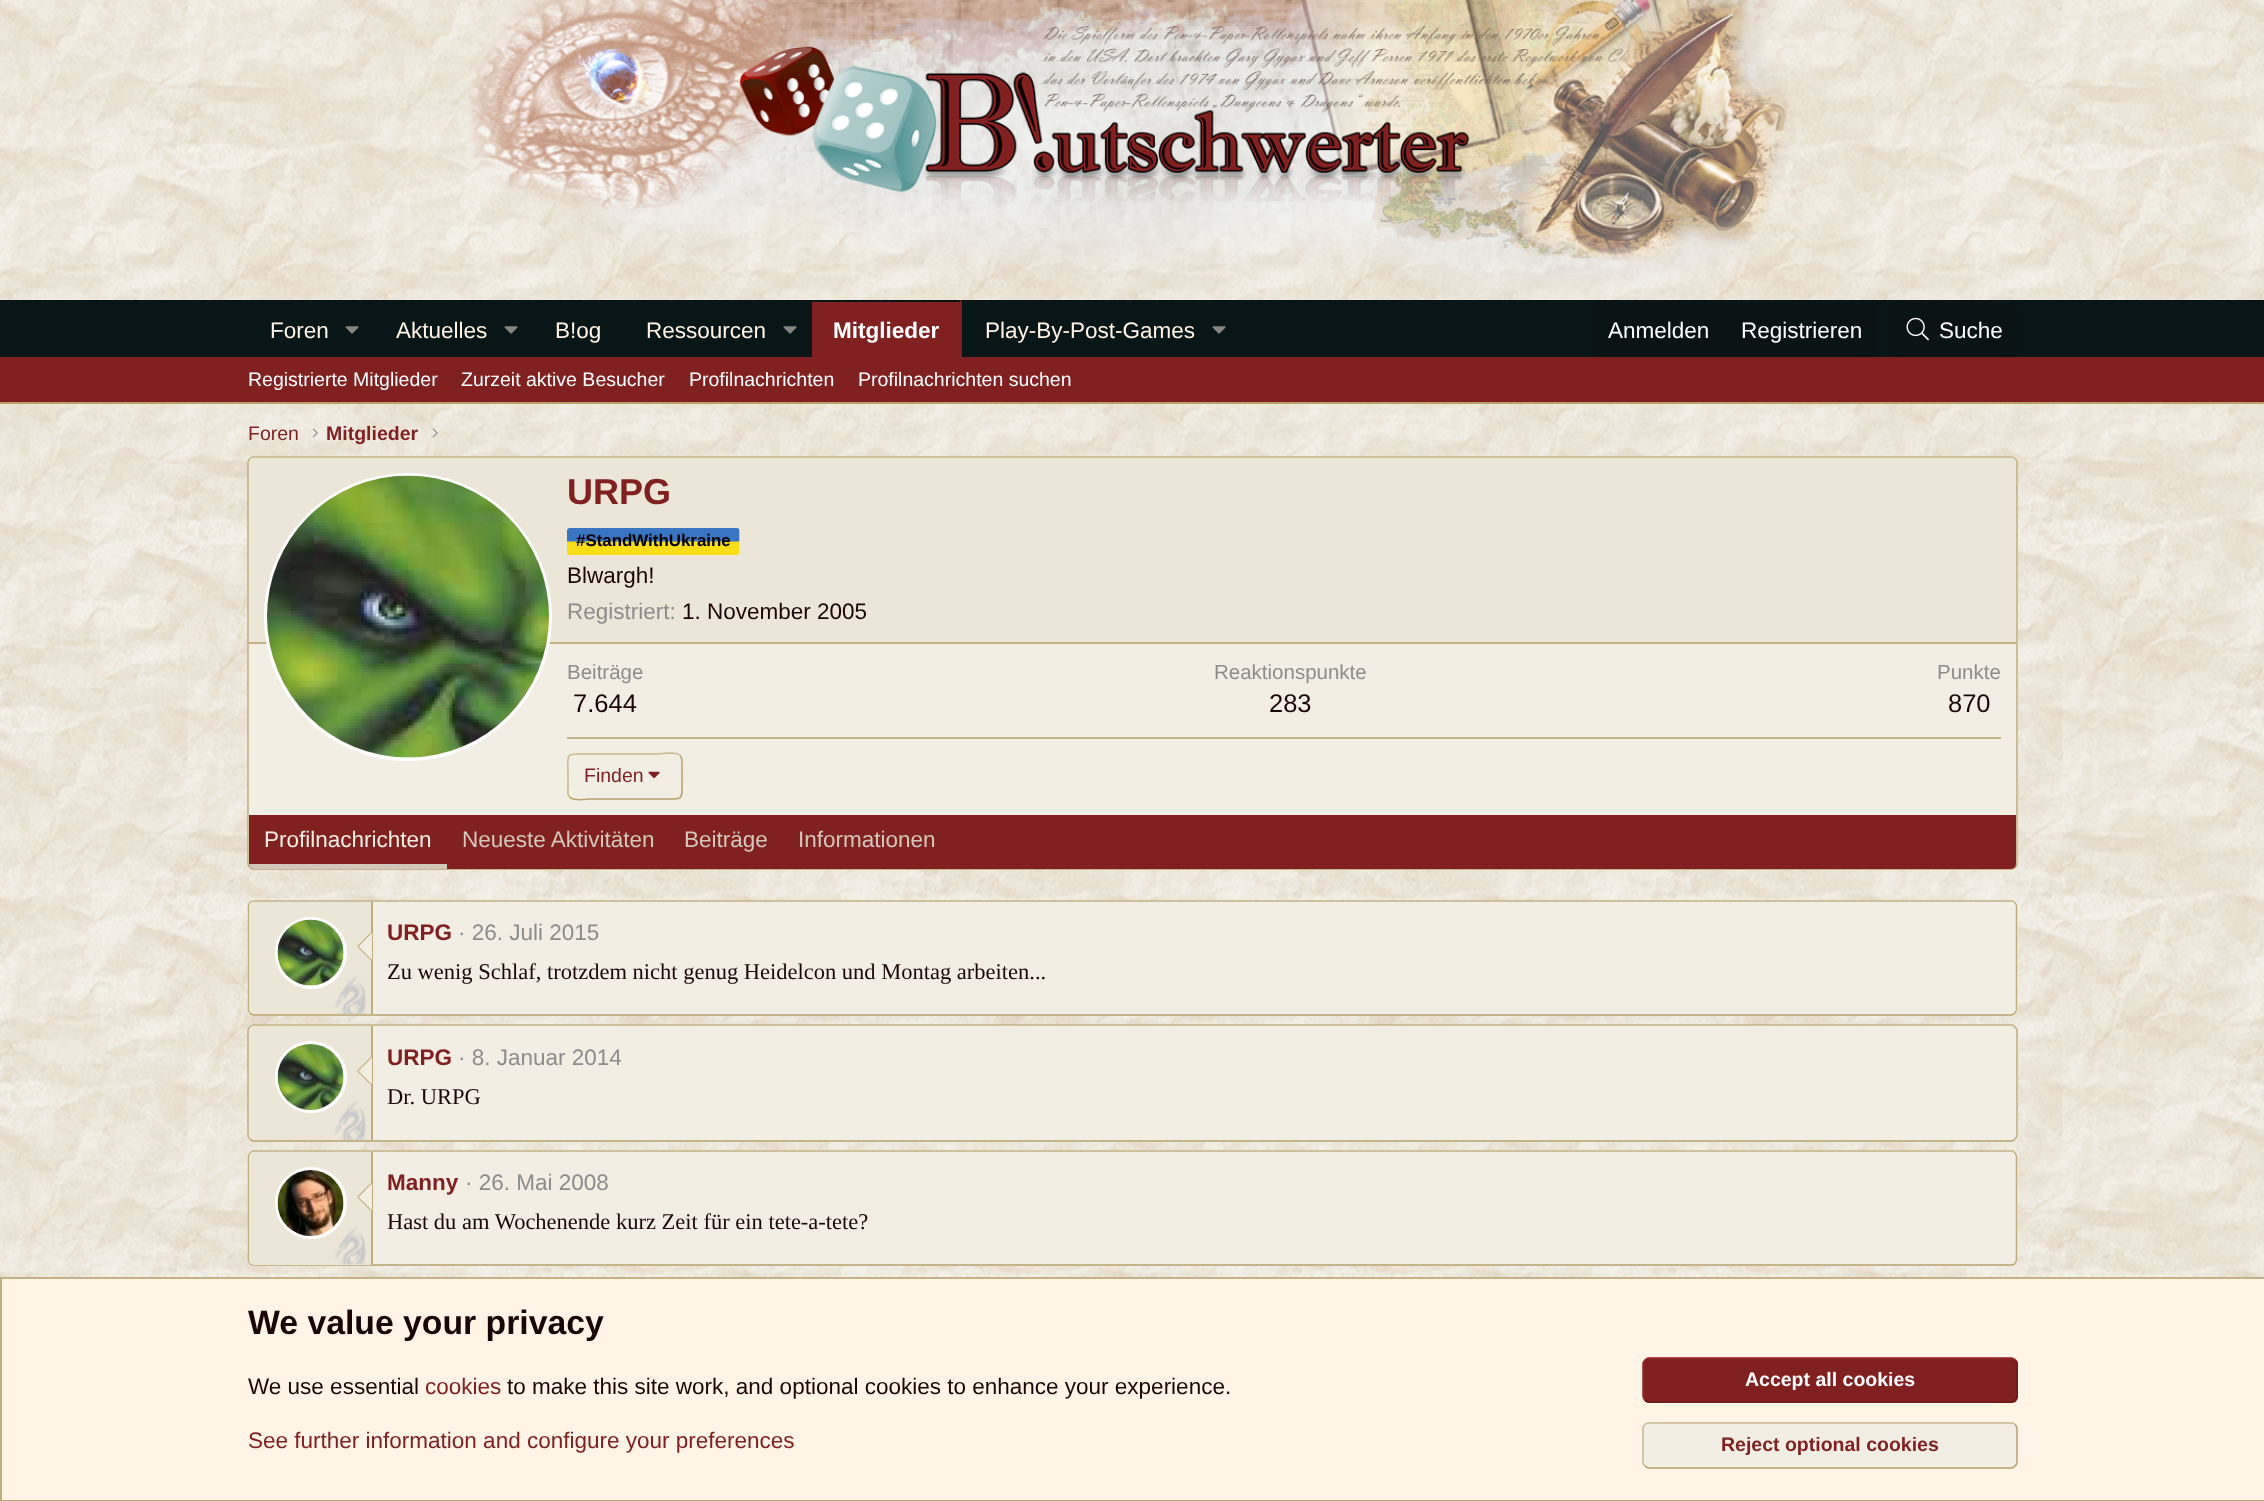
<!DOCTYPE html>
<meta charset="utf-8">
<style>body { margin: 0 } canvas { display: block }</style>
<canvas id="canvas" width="2264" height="1501"></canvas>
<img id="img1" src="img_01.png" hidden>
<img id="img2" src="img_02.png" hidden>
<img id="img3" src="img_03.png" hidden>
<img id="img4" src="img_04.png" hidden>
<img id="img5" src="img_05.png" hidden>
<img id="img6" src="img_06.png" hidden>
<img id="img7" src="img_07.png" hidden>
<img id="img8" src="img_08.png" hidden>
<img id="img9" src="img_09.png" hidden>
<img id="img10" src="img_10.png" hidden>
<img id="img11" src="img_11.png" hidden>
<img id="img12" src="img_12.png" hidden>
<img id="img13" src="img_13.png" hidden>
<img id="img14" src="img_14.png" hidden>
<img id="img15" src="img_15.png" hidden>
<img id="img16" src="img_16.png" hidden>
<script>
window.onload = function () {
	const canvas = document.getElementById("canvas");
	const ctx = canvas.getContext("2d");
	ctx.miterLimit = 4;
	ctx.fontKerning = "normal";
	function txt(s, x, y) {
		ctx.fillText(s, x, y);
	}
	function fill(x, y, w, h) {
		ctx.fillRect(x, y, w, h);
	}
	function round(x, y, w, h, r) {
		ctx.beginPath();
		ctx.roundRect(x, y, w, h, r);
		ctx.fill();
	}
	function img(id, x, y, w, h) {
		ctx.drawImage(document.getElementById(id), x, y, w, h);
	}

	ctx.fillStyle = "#FFFFFF";
	fill(0, 0, 2264, 1501);
	img("img1", 0, 404, 2264, 873);
	img("img2", 0, 0, 2264, 300);
	img("img3", 468, 0, 1328, 298);
	ctx.fillStyle = "#081618";
	fill(0, 300, 2264, 57);
	img("img4", 345, 326, 14, 8);
	img("img4", 504, 326, 14, 8);
	img("img4", 783, 326, 14, 8);
	ctx.fillStyle = "#802020";
	ctx.beginPath();
	ctx.roundRect(812, 300, 150, 57, [3, 3, 0, 0]);
	ctx.fill();
	ctx.fillStyle = "#081618";
	fill(813, 300, 147, 2);
	img("img4", 1212, 326, 14, 8);
	ctx.fillStyle = "#0B1415";
	ctx.beginPath();
	ctx.roundRect(1593, 302, 285, 55, [6, 6, 0, 0]);
	ctx.fill();
	ctx.beginPath();
	ctx.roundRect(1889, 302, 129, 55, [6, 6, 0, 0]);
	ctx.fill();
	img("img5", 1906, 317, 23, 24);
	ctx.fillStyle = "#802020";
	fill(0, 357, 2264, 45);
	ctx.fillStyle = "#B8A26C";
	fill(0, 402, 2264, 2);
	img("img6", 312, 428, 6, 10);
	img("img7", 432, 428, 6, 10);
	ctx.fillStyle = "#F2EEE4";
	round(248, 456, 1770, 414, 6);
	ctx.beginPath();
	ctx.moveTo(250, 458.5);
	ctx.bezierCurveTo(251, 457.5, 252, 457, 253.5, 457);
	ctx.lineTo(2011.5, 457);
	ctx.bezierCurveTo(2013, 457, 2014, 457.5, 2015, 458.5);
	ctx.strokeStyle = "#C5B387";
	ctx.lineWidth = 1.5;
	ctx.stroke();
	ctx.beginPath();
	ctx.moveTo(2015, 458.5);
	ctx.bezierCurveTo(2016, 459.5, 2017, 460.5, 2017, 462);
	ctx.lineTo(2017, 864);
	ctx.bezierCurveTo(2017, 865.5, 2016, 866.5, 2015, 867.5);
	ctx.strokeStyle = "#C0AD7D";
	ctx.stroke();
	ctx.beginPath();
	ctx.moveTo(2015, 867.5);
	ctx.bezierCurveTo(2014, 868.5, 2013, 869, 2011.5, 869);
	ctx.lineTo(253.5, 869);
	ctx.bezierCurveTo(252, 869, 251, 868.5, 250, 867.5);
	ctx.strokeStyle = "#B8A26C";
	ctx.stroke();
	ctx.beginPath();
	ctx.moveTo(250, 867.5);
	ctx.bezierCurveTo(249, 866.5, 248, 865.5, 248, 864);
	ctx.lineTo(248, 462);
	ctx.bezierCurveTo(248, 460.5, 249, 459.5, 250, 458.5);
	ctx.strokeStyle = "#C0AD7D";
	ctx.stroke();
	ctx.fillStyle = "#ECE6D8";
	ctx.beginPath();
	ctx.roundRect(249, 458, 1767, 186, [5, 5, 0, 0]);
	ctx.fill();
	ctx.fillStyle = "#C5B387";
	fill(249, 642, 1767, 2);
	ctx.fillStyle = "#F2EEE4";
	ctx.beginPath();
	ctx.arc(408, 617, 142.5, 0, Math.PI * 2);
	ctx.fill();
	ctx.strokeStyle = "#FFFFFF";
	ctx.lineWidth = 3;
	ctx.stroke();
	img("img8", 267, 475, 282, 283);
	img("img9", 567, 528, 173, 27);
	ctx.fillStyle = "#C5B387";
	fill(567, 737, 1434, 2);
	ctx.beginPath();
	ctx.moveTo(680, 755.5);
	ctx.bezierCurveTo(682.5, 757.5, 682, 762, 682, 765);
	ctx.lineTo(682, 776);
	ctx.bezierCurveTo(682, 802, 685.5, 799, 659, 799);
	ctx.lineTo(590, 799);
	ctx.bezierCurveTo(589.5, 799, 573.5, 801.5, 569.5, 797);
	ctx.strokeStyle = "#B8A26C";
	ctx.lineWidth = 1.5;
	ctx.stroke();
	ctx.beginPath();
	ctx.moveTo(569.5, 797);
	ctx.bezierCurveTo(567, 795, 568, 790.5, 568, 788);
	ctx.lineTo(568, 776);
	ctx.bezierCurveTo(568, 750.5, 564, 754, 590, 754);
	ctx.lineTo(659, 754);
	ctx.bezierCurveTo(660, 754, 676, 751, 680, 755.5);
	ctx.strokeStyle = "#C9B88E";
	ctx.stroke();
	img("img10", 648, 771, 12, 8);
	ctx.fillStyle = "#802020";
	ctx.beginPath();
	ctx.roundRect(249, 815, 1767, 54, [0, 0, 5, 5]);
	ctx.fill();
	ctx.fillStyle = "#D1C8BB";
	ctx.beginPath();
	ctx.roundRect(249, 864, 198, 5, [0, 0, 0, 5]);
	ctx.fill();
	ctx.fillStyle = "#F2EEE4";
	round(248, 900, 1770, 116, 6);
	ctx.beginPath();
	ctx.moveTo(250, 902.5);
	ctx.bezierCurveTo(251, 901.5, 252, 901, 253.5, 901);
	ctx.lineTo(2011.5, 901);
	ctx.bezierCurveTo(2013, 901, 2014, 901.5, 2015, 902.5);
	ctx.strokeStyle = "#C5B387";
	ctx.stroke();
	ctx.beginPath();
	ctx.moveTo(2015, 902.5);
	ctx.lineTo(2016.5, 905.5);
	ctx.lineTo(2016.5, 1010);
	ctx.lineTo(2015, 1013);
	ctx.strokeStyle = "#C0AD7D";
	ctx.stroke();
	ctx.beginPath();
	ctx.moveTo(2015, 1013);
	ctx.bezierCurveTo(2014, 1014, 2013, 1015, 2011.5, 1015);
	ctx.lineTo(253.5, 1015);
	ctx.bezierCurveTo(252, 1015, 251, 1014, 250, 1013);
	ctx.strokeStyle = "#B8A26C";
	ctx.stroke();
	ctx.beginPath();
	ctx.moveTo(250, 1013);
	ctx.lineTo(248.5, 1010);
	ctx.lineTo(248.5, 905.5);
	ctx.lineTo(250, 902.5);
	ctx.strokeStyle = "#C0AD7D";
	ctx.stroke();
	ctx.fillStyle = "#ECE6D8";
	ctx.beginPath();
	ctx.roundRect(249, 902, 123, 112, [5, 0, 0, 5]);
	ctx.fill();
	img("img11", 334, 976, 32, 38);
	ctx.fillStyle = "#C0AD7D";
	fill(371, 902, 2, 112);
	ctx.fillStyle = "#F2EEE4";
	ctx.beginPath();
	ctx.arc(311, 953, 34.5, 0, Math.PI * 2);
	ctx.fill();
	ctx.strokeStyle = "#FFFFFF";
	ctx.lineWidth = 3;
	ctx.stroke();
	img("img12", 277, 919, 67, 67);
	ctx.fillStyle = "#C0AD7D";
	ctx.beginPath();
	ctx.moveTo(372, 931.5);
	ctx.lineTo(372, 961.5);
	ctx.lineTo(357, 946.5);
	ctx.closePath();
	ctx.fill();
	ctx.fillStyle = "#F2EEE4";
	ctx.beginPath();
	ctx.moveTo(372, 933);
	ctx.lineTo(372, 960);
	ctx.lineTo(358.5, 946.5);
	ctx.closePath();
	ctx.fill();
	round(248, 1025, 1770, 117, 6);
	ctx.beginPath();
	ctx.moveTo(250, 1027);
	ctx.bezierCurveTo(251, 1026, 252, 1025, 253.5, 1025);
	ctx.lineTo(2011.5, 1025);
	ctx.bezierCurveTo(2013, 1025, 2014, 1026, 2015, 1027);
	ctx.strokeStyle = "#C5B387";
	ctx.lineWidth = 1.5;
	ctx.stroke();
	ctx.beginPath();
	ctx.moveTo(2015, 1027);
	ctx.bezierCurveTo(2016, 1028, 2017, 1029, 2017, 1030.5);
	ctx.lineTo(2017, 1135.5);
	ctx.bezierCurveTo(2017, 1137, 2016, 1138, 2015, 1139);
	ctx.strokeStyle = "#C0AD7D";
	ctx.stroke();
	ctx.beginPath();
	ctx.moveTo(2015, 1139);
	ctx.bezierCurveTo(2014, 1140, 2013, 1141, 2011.5, 1141);
	ctx.lineTo(253.5, 1141);
	ctx.bezierCurveTo(252, 1141, 251, 1140, 250, 1139);
	ctx.strokeStyle = "#B8A26C";
	ctx.stroke();
	ctx.beginPath();
	ctx.moveTo(250, 1139);
	ctx.bezierCurveTo(249, 1138, 248, 1137, 248, 1135.5);
	ctx.lineTo(248, 1030.5);
	ctx.bezierCurveTo(248, 1029, 249, 1028, 250, 1027);
	ctx.strokeStyle = "#C0AD7D";
	ctx.stroke();
	ctx.fillStyle = "#ECE6D8";
	ctx.beginPath();
	ctx.roundRect(249, 1026, 123, 114, [5, 0, 0, 5]);
	ctx.fill();
	img("img13", 334, 1101, 32, 39);
	ctx.fillStyle = "#C0AD7D";
	fill(371, 1026, 2, 114);
	ctx.fillStyle = "#F2EEE4";
	ctx.beginPath();
	ctx.arc(311, 1077, 34.5, 0, Math.PI * 2);
	ctx.fill();
	ctx.strokeStyle = "#FFFFFF";
	ctx.lineWidth = 3;
	ctx.stroke();
	img("img14", 277, 1044, 67, 66);
	ctx.fillStyle = "#C0AD7D";
	ctx.beginPath();
	ctx.moveTo(372, 1056);
	ctx.lineTo(372, 1086);
	ctx.lineTo(357, 1071);
	ctx.closePath();
	ctx.fill();
	ctx.fillStyle = "#F2EEE4";
	ctx.beginPath();
	ctx.moveTo(372, 1057.5);
	ctx.lineTo(372, 1084.5);
	ctx.lineTo(358.5, 1071);
	ctx.closePath();
	ctx.fill();
	round(248, 1151, 1770, 115, 6);
	ctx.beginPath();
	ctx.moveTo(250, 1153);
	ctx.bezierCurveTo(251, 1152, 252, 1151, 253.5, 1151);
	ctx.lineTo(2011.5, 1151);
	ctx.bezierCurveTo(2013, 1151, 2014, 1152, 2015, 1153);
	ctx.strokeStyle = "#C5B387";
	ctx.lineWidth = 1.5;
	ctx.stroke();
	ctx.beginPath();
	ctx.moveTo(2015, 1153);
	ctx.lineTo(2016.5, 1156);
	ctx.lineTo(2016.5, 1260.5);
	ctx.lineTo(2015, 1263.5);
	ctx.strokeStyle = "#C0AD7D";
	ctx.stroke();
	ctx.beginPath();
	ctx.moveTo(2015, 1263.5);
	ctx.bezierCurveTo(2014, 1264.5, 2013, 1265, 2011.5, 1265);
	ctx.lineTo(253.5, 1265);
	ctx.bezierCurveTo(252, 1265, 251, 1264.5, 250, 1263.5);
	ctx.strokeStyle = "#B8A26C";
	ctx.stroke();
	ctx.beginPath();
	ctx.moveTo(250, 1263.5);
	ctx.lineTo(248.5, 1260.5);
	ctx.lineTo(248.5, 1156);
	ctx.lineTo(250, 1153);
	ctx.strokeStyle = "#C0AD7D";
	ctx.stroke();
	ctx.fillStyle = "#ECE6D8";
	ctx.beginPath();
	ctx.roundRect(249, 1152, 123, 113, [5, 0, 0, 5]);
	ctx.fill();
	img("img15", 334, 1227, 32, 38);
	ctx.fillStyle = "#C0AD7D";
	fill(371, 1152, 2, 113);
	ctx.fillStyle = "#F2EEE4";
	ctx.beginPath();
	ctx.arc(311, 1203, 34.5, 0, Math.PI * 2);
	ctx.fill();
	ctx.strokeStyle = "#FFFFFF";
	ctx.lineWidth = 3;
	ctx.stroke();
	img("img16", 277, 1170, 67, 66);
	ctx.fillStyle = "#C0AD7D";
	ctx.beginPath();
	ctx.moveTo(372, 1182);
	ctx.lineTo(372, 1212);
	ctx.lineTo(357, 1197);
	ctx.closePath();
	ctx.fill();
	ctx.fillStyle = "#F2EEE4";
	ctx.beginPath();
	ctx.moveTo(372, 1183.5);
	ctx.lineTo(372, 1210.5);
	ctx.lineTo(358.5, 1197);
	ctx.closePath();
	ctx.fill();
	ctx.fillStyle = "#FFF4E5";
	fill(2, 1279, 2262, 221);
	ctx.fillStyle = "#C5B387";
	fill(0, 1277, 2264, 2);
	ctx.fillStyle = "#B8A26C";
	fill(0, 1500, 2264, 1);
	ctx.fillStyle = "#C0AD7D";
	fill(0, 1277, 2, 224);
	ctx.fillStyle = "#802020";
	round(1643, 1358, 375, 45, 6);
	ctx.beginPath();
	ctx.moveTo(2015, 1360);
	ctx.bezierCurveTo(2016, 1361, 2017, 1362, 2017, 1363.5);
	ctx.lineTo(2017, 1396.5);
	ctx.bezierCurveTo(2017, 1398, 2016, 1399, 2015, 1400);
	ctx.bezierCurveTo(2014, 1401, 2013, 1402, 2011.5, 1402);
	ctx.lineTo(1648.5, 1402);
	ctx.bezierCurveTo(1647, 1402, 1646, 1401, 1645, 1400);
	ctx.strokeStyle = "#6C1B1B";
	ctx.lineWidth = 1.5;
	ctx.stroke();
	ctx.beginPath();
	ctx.moveTo(1645, 1400);
	ctx.bezierCurveTo(1644, 1399, 1643, 1398, 1643, 1396.5);
	ctx.lineTo(1643, 1363.5);
	ctx.bezierCurveTo(1643, 1362, 1644, 1361, 1645, 1360);
	ctx.bezierCurveTo(1646, 1359, 1647, 1358, 1648.5, 1358);
	ctx.lineTo(2011.5, 1358);
	ctx.bezierCurveTo(2013, 1358, 2014, 1359, 2015, 1360);
	ctx.strokeStyle = "#942525";
	ctx.stroke();
	ctx.fillStyle = "#F2EEE4";
	round(1643, 1422, 375, 47, 6);
	ctx.beginPath();
	ctx.moveTo(2015, 1424.5);
	ctx.bezierCurveTo(2016, 1425.5, 2017, 1426.5, 2017, 1428);
	ctx.lineTo(2017, 1462.5);
	ctx.bezierCurveTo(2017, 1464, 2016, 1465, 2015, 1466);
	ctx.bezierCurveTo(2014, 1467, 2013, 1468, 2011.5, 1468);
	ctx.lineTo(1648.5, 1468);
	ctx.bezierCurveTo(1647, 1468, 1646, 1467, 1645, 1466);
	ctx.strokeStyle = "#B8A26C";
	ctx.stroke();
	ctx.beginPath();
	ctx.moveTo(1645, 1466);
	ctx.bezierCurveTo(1644, 1465, 1643, 1464, 1643, 1462.5);
	ctx.lineTo(1643, 1428);
	ctx.bezierCurveTo(1643, 1426.5, 1644, 1425.5, 1645, 1424.5);
	ctx.bezierCurveTo(1646, 1423.5, 1647, 1423, 1648.5, 1423);
	ctx.lineTo(2011.5, 1423);
	ctx.bezierCurveTo(2013, 1423, 2014, 1423.5, 2015, 1424.5);
	ctx.strokeStyle = "#C9B88E";
	ctx.stroke();
	ctx.font = "22.5px Liberation Sans";
	ctx.fillStyle = "#FFF4E5";
	txt("Foren", 270, 338);
	txt("Aktuelles", 396, 338);
	txt("B!og", 555, 338);
	txt("Ressourcen", 646, 338);
	ctx.font = "bold 22.5px Liberation Sans";
	ctx.fillStyle = "#FFFFFF";
	txt("Mitglieder", 833, 338);
	ctx.font = "22.5px Liberation Sans";
	ctx.fillStyle = "#FFF4E5";
	txt("Play-By-Post-Games", 985, 338);
	ctx.fillStyle = "#FFFFFF";
	txt("Anmelden", 1608, 338);
	txt("Registrieren", 1741, 338);
	txt("Suche", 1939, 338);
	ctx.font = "19.5px Liberation Sans";
	txt("Registrierte Mitglieder", 248, 386);
	txt("Zurzeit aktive Besucher", 461, 386);
	txt("Profilnachrichten", 689, 386);
	txt("Profilnachrichten suchen", 858, 386);
	ctx.fillStyle = "#802020";
	txt("Foren", 248, 440);
	ctx.font = "bold 19.5px Liberation Sans";
	txt("Mitglieder", 326, 440);
	ctx.font = "bold 36px Liberation Sans";
	txt("URPG", 567, 504);
	ctx.font = "bold 16.9px Liberation Sans";
	ctx.fillStyle = "#000000";
	txt("#StandWithUkraine", 576, 546);
	ctx.font = "22.5px Liberation Sans";
	ctx.fillStyle = "#1A0606";
	txt("Blwargh!", 567, 583);
	ctx.fillStyle = "#8C8C8C";
	txt("Registriert:", 567, 619);
	ctx.fillStyle = "#1A0606";
	txt("1. November 2005", 682, 619);
	ctx.font = "20.5px Liberation Sans";
	ctx.fillStyle = "#8C8C8C";
	txt("Beiträge", 567, 679);
	ctx.font = "25.5px Liberation Sans";
	ctx.fillStyle = "#1A0606";
	txt("7.644", 573, 712);
	ctx.font = "20.5px Liberation Sans";
	ctx.fillStyle = "#8C8C8C";
	txt("Reaktionspunkte", 1214, 679);
	ctx.font = "25.5px Liberation Sans";
	ctx.fillStyle = "#1A0606";
	txt("283", 1269, 712);
	ctx.font = "20.5px Liberation Sans";
	ctx.fillStyle = "#8C8C8C";
	txt("Punkte", 1937, 679);
	ctx.font = "25.5px Liberation Sans";
	ctx.fillStyle = "#1A0606";
	txt("870", 1948, 712);
	ctx.font = "19.5px Liberation Sans";
	ctx.fillStyle = "#802020";
	txt("Finden", 584, 782);
	ctx.font = "22.5px Liberation Sans";
	ctx.fillStyle = "#F2EEE4";
	txt("Profilnachrichten", 264, 847);
	ctx.fillStyle = "#D1C8BB";
	txt("Neueste Aktivitäten", 462, 847);
	txt("Beiträge", 684, 847);
	txt("Informationen", 798, 847);
	ctx.font = "bold 22.5px Liberation Sans";
	ctx.fillStyle = "#802020";
	txt("URPG", 387, 940);
	ctx.font = "22.5px Liberation Sans";
	ctx.fillStyle = "#8C8C8C";
	txt("· 26. Juli 2015", 458, 940);
	ctx.font = "22.5px Liberation Serif";
	ctx.fillStyle = "#1A0606";
	txt("Zu wenig Schlaf, trotzdem nicht genug Heidelcon und Montag arbeiten...", 387, 979);
	ctx.font = "bold 22.5px Liberation Sans";
	ctx.fillStyle = "#802020";
	txt("URPG", 387, 1065);
	ctx.font = "22.5px Liberation Sans";
	ctx.fillStyle = "#8C8C8C";
	txt("· 8. Januar 2014", 458, 1065);
	ctx.font = "22.5px Liberation Serif";
	ctx.fillStyle = "#1A0606";
	txt("Dr. URPG", 387, 1104);
	ctx.font = "bold 22.5px Liberation Sans";
	ctx.fillStyle = "#802020";
	txt("Manny", 387, 1190);
	ctx.font = "22.5px Liberation Sans";
	ctx.fillStyle = "#8C8C8C";
	txt("· 26. Mai 2008", 465, 1190);
	ctx.font = "22.5px Liberation Serif";
	ctx.fillStyle = "#1A0606";
	txt("Hast du am Wochenende kurz Zeit für ein tete-a-tete?", 387, 1229);
	ctx.font = "bold 33.75px Liberation Sans";
	txt("We value your privacy", 248, 1334);
	ctx.font = "22.5px Liberation Sans";
	txt("We use essential", 248, 1394);
	ctx.fillStyle = "#802020";
	txt("cookies", 425, 1394);
	ctx.fillStyle = "#1A0606";
	txt("to make this site work, and optional cookies to enhance your experience.", 507, 1394);
	ctx.fillStyle = "#802020";
	txt("See further information and configure your preferences", 248, 1448);
	ctx.font = "bold 19.5px Liberation Sans";
	ctx.fillStyle = "#FFFFFF";
	txt("Accept all cookies", 1745, 1386);
	ctx.fillStyle = "#802020";
	txt("Reject optional cookies", 1721, 1451);
};
</script>
